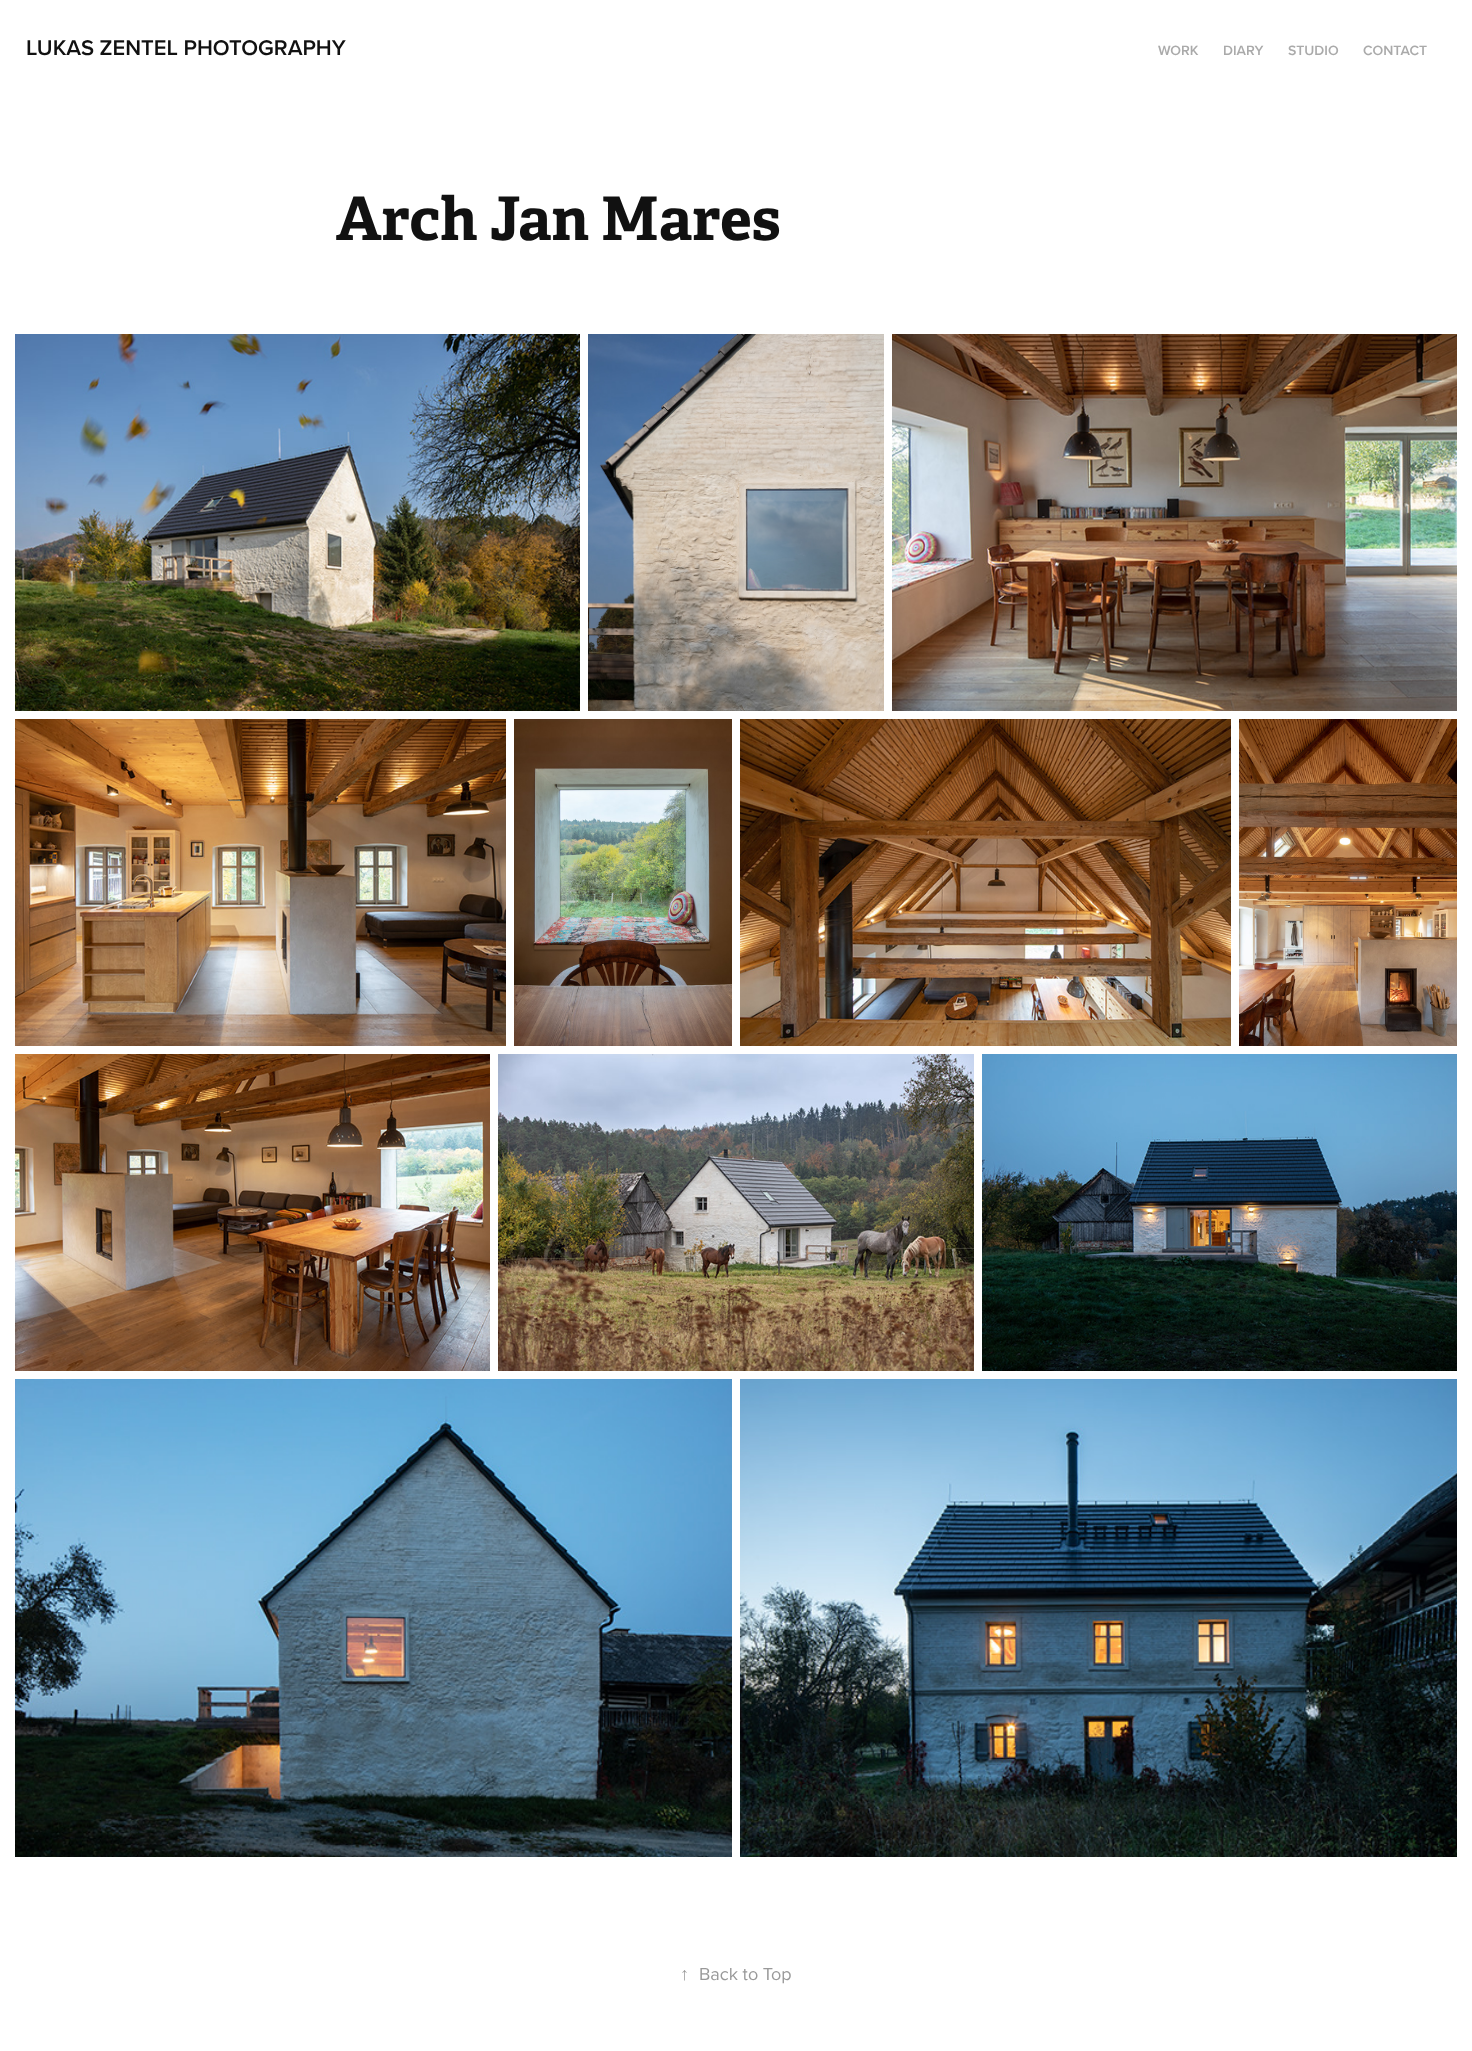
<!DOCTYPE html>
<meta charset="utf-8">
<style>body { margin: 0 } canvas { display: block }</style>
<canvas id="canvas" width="1472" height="2051"></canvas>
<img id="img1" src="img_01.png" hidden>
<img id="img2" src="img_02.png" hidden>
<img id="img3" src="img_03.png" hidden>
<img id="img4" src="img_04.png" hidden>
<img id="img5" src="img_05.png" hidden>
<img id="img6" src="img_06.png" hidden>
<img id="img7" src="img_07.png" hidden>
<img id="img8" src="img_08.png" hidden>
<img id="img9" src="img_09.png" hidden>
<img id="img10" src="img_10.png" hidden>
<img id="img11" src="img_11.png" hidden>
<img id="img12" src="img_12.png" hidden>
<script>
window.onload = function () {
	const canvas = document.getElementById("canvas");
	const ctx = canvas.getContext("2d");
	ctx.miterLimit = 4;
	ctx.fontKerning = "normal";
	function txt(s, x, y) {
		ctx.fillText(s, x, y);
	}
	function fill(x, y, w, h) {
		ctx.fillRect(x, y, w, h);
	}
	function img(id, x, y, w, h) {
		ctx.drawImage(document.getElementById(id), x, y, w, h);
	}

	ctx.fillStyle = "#FFFFFF";
	fill(0, 0, 1472, 2051);
	img("img1", 15, 334, 565, 377);
	img("img2", 588, 334, 296, 377);
	img("img3", 892, 334, 565, 377);
	img("img4", 15, 719, 491, 327);
	img("img5", 514, 719, 218, 327);
	img("img6", 740, 719, 491, 327);
	img("img7", 1239, 719, 218, 327);
	img("img8", 15, 1054, 475, 317);
	img("img9", 498, 1054, 476, 317);
	img("img10", 982, 1054, 475, 317);
	img("img11", 15, 1379, 717, 478);
	img("img12", 740, 1379, 717, 478);
	ctx.font = "600 22px Proxima Nova";
	ctx.fillStyle = "#111111";
	txt("LUKAS ZENTEL PHOTOGRAPHY", 26, 55);
	ctx.font = "600 14px Proxima Nova";
	ctx.fillStyle = "#AAAAAA";
	txt("WORK", 1158, 55);
	txt("DIARY", 1223, 55);
	txt("STUDIO", 1288, 55);
	txt("CONTACT", 1363, 55);
	ctx.font = "bold 60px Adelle";
	ctx.fillStyle = "#111111";
	txt("Arch Jan Mares", 336, 240);
	ctx.font = "18px Liberation Serif";
	ctx.fillStyle = "#999999";
	txt("↑", 680, 1980);
	ctx.font = "18px Proxima Nova";
	txt("Back to Top", 699, 1980);
};
</script>
